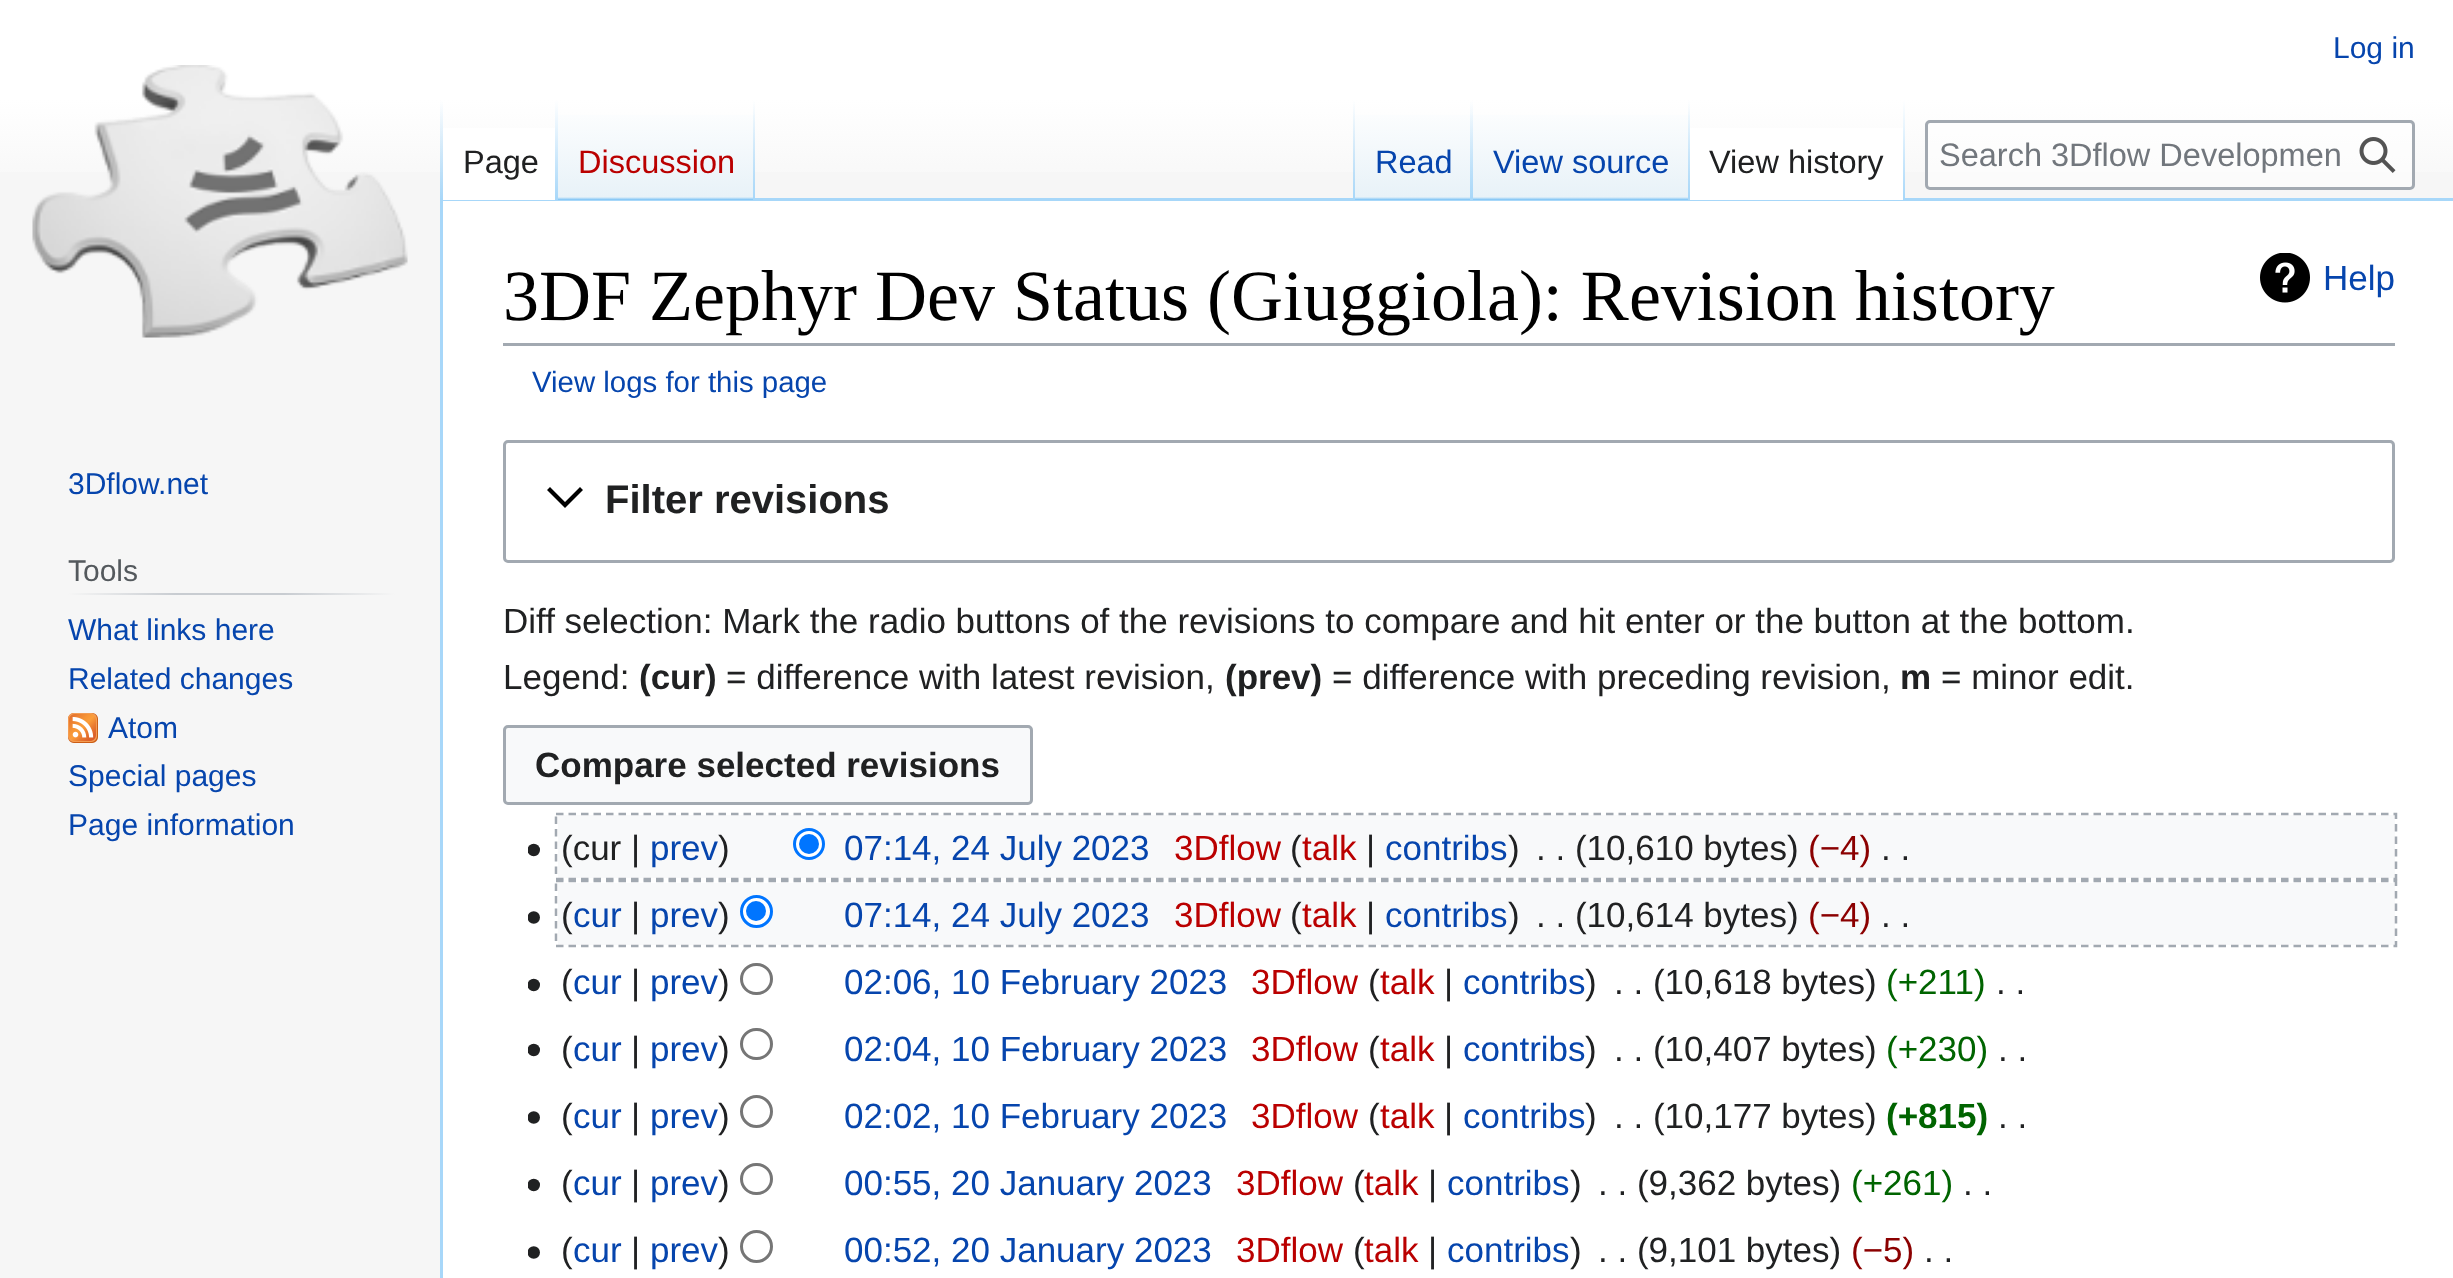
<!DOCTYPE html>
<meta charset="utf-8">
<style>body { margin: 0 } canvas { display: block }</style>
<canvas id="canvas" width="2453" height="1278"></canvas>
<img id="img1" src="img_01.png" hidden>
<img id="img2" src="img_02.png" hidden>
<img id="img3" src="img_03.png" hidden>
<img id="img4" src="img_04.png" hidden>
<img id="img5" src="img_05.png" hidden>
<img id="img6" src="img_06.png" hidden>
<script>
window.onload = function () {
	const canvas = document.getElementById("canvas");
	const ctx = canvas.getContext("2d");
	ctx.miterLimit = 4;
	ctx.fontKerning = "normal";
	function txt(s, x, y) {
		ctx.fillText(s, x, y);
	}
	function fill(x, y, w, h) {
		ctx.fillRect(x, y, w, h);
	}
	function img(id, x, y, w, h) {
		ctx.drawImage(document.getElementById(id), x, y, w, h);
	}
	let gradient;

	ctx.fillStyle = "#F6F6F6";
	fill(0, 0, 2453, 1278);
	gradient = ctx.createLinearGradient(1228, 0, 1228, 200);
	gradient.addColorStop(0.5, "#FFFFFF");
	gradient.addColorStop(1, "#F6F6F6");
	ctx.fillStyle = gradient;
	fill(0, 0, 2453, 172);
	ctx.fillStyle = "#A7D7F9";
	fill(440, 198, 2013, 3);
	fill(440, 198, 3, 1080);
	gradient = ctx.createLinearGradient(441, 100, 441, 200);
	gradient.addColorStop(0, "rgba(167, 215, 249, 0)");
	gradient.addColorStop(1, "#A7D7F9");
	ctx.fillStyle = gradient;
	fill(440, 100, 3, 100);
	ctx.fillStyle = "#FFFFFF";
	fill(443, 128, 112, 72);
	gradient = ctx.createLinearGradient(556, 100, 556, 200);
	gradient.addColorStop(0, "#FFFFFF");
	gradient.addColorStop(1, "#A7D7F9");
	ctx.fillStyle = gradient;
	fill(555, 100, 3, 100);
	gradient = ctx.createLinearGradient(656, 200, 656, 100);
	gradient.addColorStop(0, "#77C1F6");
	gradient.addColorStop(0.03, "#E8F2F8");
	gradient.addColorStop(1, "#FFFFFF");
	ctx.fillStyle = gradient;
	fill(558, 115, 197, 85);
	gradient = ctx.createLinearGradient(754, 100, 754, 200);
	gradient.addColorStop(0, "rgba(167, 215, 249, 0)");
	gradient.addColorStop(1, "#A7D7F9");
	ctx.fillStyle = gradient;
	fill(753, 100, 2, 100);
	gradient = ctx.createLinearGradient(1354, 100, 1354, 200);
	gradient.addColorStop(0, "rgba(167, 215, 249, 0)");
	gradient.addColorStop(1, "#A7D7F9");
	ctx.fillStyle = gradient;
	fill(1353, 100, 2, 100);
	gradient = ctx.createLinearGradient(1414, 200, 1414, 100);
	gradient.addColorStop(0, "#77C1F6");
	gradient.addColorStop(0.03, "#E8F2F8");
	gradient.addColorStop(1, "#FFFFFF");
	ctx.fillStyle = gradient;
	fill(1355, 115, 118, 85);
	gradient = ctx.createLinearGradient(1471, 100, 1471, 200);
	gradient.addColorStop(0, "rgba(167, 215, 249, 0)");
	gradient.addColorStop(1, "#A7D7F9");
	ctx.fillStyle = gradient;
	fill(1470, 100, 3, 100);
	gradient = ctx.createLinearGradient(1581, 200, 1581, 100);
	gradient.addColorStop(0, "#77C1F6");
	gradient.addColorStop(0.03, "#E8F2F8");
	gradient.addColorStop(1, "#FFFFFF");
	ctx.fillStyle = gradient;
	fill(1473, 115, 217, 85);
	gradient = ctx.createLinearGradient(1689, 100, 1689, 200);
	gradient.addColorStop(0, "rgba(167, 215, 249, 0)");
	gradient.addColorStop(1, "#A7D7F9");
	ctx.fillStyle = gradient;
	fill(1688, 100, 2, 100);
	ctx.fillStyle = "#FFFFFF";
	fill(1690, 128, 213, 72);
	gradient = ctx.createLinearGradient(1904, 100, 1904, 200);
	gradient.addColorStop(0, "#FFFFFF");
	gradient.addColorStop(1, "#A7D7F9");
	ctx.fillStyle = gradient;
	fill(1903, 100, 2, 100);
	ctx.fillStyle = "rgba(255, 255, 255, 0.5)";
	ctx.beginPath();
	ctx.roundRect(1926.5, 121.5, 487, 67, 3.5);
	ctx.fill();
	ctx.strokeStyle = "#A2A9B1";
	ctx.lineWidth = 3;
	ctx.stroke();
	img("img1", 2359, 137, 37, 36);
	img("img2", 32, 65, 376, 273);
	gradient = ctx.createLinearGradient(68, 594, 395, 594);
	gradient.addColorStop(0, "#F6F6F6");
	gradient.addColorStop(0.33, "#C8CCD1");
	gradient.addColorStop(0.66, "#C8CCD1");
	gradient.addColorStop(1, "#F6F6F6");
	ctx.fillStyle = gradient;
	fill(68, 593, 327, 2);
	img("img3", 68, 713, 30, 30);
	ctx.fillStyle = "#FFFFFF";
	fill(443, 201, 2010, 1077);
	ctx.fillStyle = "#A2A9B1";
	fill(503, 343, 1892, 3);
	img("img4", 2260, 253, 50, 50);
	ctx.beginPath();
	ctx.roundRect(504.5, 441.5, 1889, 120, 3.5);
	ctx.stroke();
	ctx.fillStyle = "#000000";
	ctx.beginPath();
	ctx.moveTo(580, 487);
	ctx.lineTo(565, 502);
	ctx.lineTo(550, 487);
	ctx.lineTo(547, 490);
	ctx.lineTo(565, 508);
	ctx.lineTo(583, 490);
	ctx.closePath();
	ctx.fill();
	ctx.fillStyle = "#F8F9FA";
	ctx.beginPath();
	ctx.roundRect(504.5, 726.5, 527, 77, 3.5);
	ctx.fill();
	ctx.stroke();
	fill(558, 815, 1837, 63);
	img("img5", 528, 843, 12, 14);
	ctx.fillStyle = "#FFFFFF";
	ctx.beginPath();
	ctx.arc(809, 844, 14.5, 0, Math.PI * 2);
	ctx.fill();
	ctx.strokeStyle = "#0075FF";
	ctx.stroke();
	ctx.fillStyle = "#0075FF";
	ctx.beginPath();
	ctx.arc(809, 844, 10, 0, Math.PI * 2);
	ctx.fill();
	ctx.fillStyle = "#F8F9FA";
	fill(558, 883, 1837, 62);
	img("img6", 528, 911, 12, 13);
	ctx.fillStyle = "#FFFFFF";
	ctx.beginPath();
	ctx.arc(756.5, 911.5, 15, 0, Math.PI * 2);
	ctx.fill();
	ctx.stroke();
	ctx.fillStyle = "#0075FF";
	ctx.beginPath();
	ctx.arc(756, 911, 10, 0, Math.PI * 2);
	ctx.fill();
	img("img5", 528, 978, 12, 14);
	ctx.beginPath();
	ctx.roundRect(741.5, 964.5, 30, 29, 14.5);
	ctx.strokeStyle = "#767676";
	ctx.stroke();
	img("img5", 528, 1043, 12, 14);
	ctx.beginPath();
	ctx.roundRect(741.5, 1029.5, 30, 29, 14.5);
	ctx.stroke();
	img("img6", 528, 1111, 12, 13);
	ctx.beginPath();
	ctx.arc(756.5, 1111.5, 15, 0, Math.PI * 2);
	ctx.stroke();
	img("img5", 528, 1178, 12, 14);
	ctx.beginPath();
	ctx.roundRect(741.5, 1164.5, 30, 29, 14.5);
	ctx.stroke();
	img("img6", 528, 1246, 12, 13);
	ctx.beginPath();
	ctx.arc(756.5, 1246.5, 15, 0, Math.PI * 2);
	ctx.stroke();
	ctx.font = "30px Liberation Sans";
	ctx.fillStyle = "#0645AD";
	txt("Log in", 2333, 58);
	ctx.font = "32.5px Liberation Sans";
	ctx.fillStyle = "#202122";
	txt("Page", 463, 173);
	ctx.fillStyle = "#BA0000";
	txt("Discussion", 578, 173);
	ctx.fillStyle = "#0645AD";
	txt("Read", 1375, 173);
	txt("View source", 1493, 173);
	ctx.fillStyle = "#202122";
	txt("View history", 1709, 173);
	ctx.fillStyle = "#72777D";
	txt("Search 3Dflow Developmen", 1939, 166);
	ctx.font = "30px Liberation Sans";
	ctx.fillStyle = "#0645AD";
	txt("3Dflow.net", 68, 494);
	ctx.fillStyle = "#54595D";
	txt("Tools", 68, 581);
	ctx.fillStyle = "#0645AD";
	txt("What links here", 68, 640);
	txt("Related changes", 68, 689);
	txt("Atom", 108, 738);
	txt("Special pages", 68, 786);
	txt("Page information", 68, 835);
	ctx.font = "72px Liberation Serif";
	ctx.fillStyle = "#000000";
	txt("3DF Zephyr Dev Status (Giuggiola): Revision history", 503, 320);
	ctx.font = "35px Liberation Sans";
	ctx.fillStyle = "#0645AD";
	txt("Help", 2323, 290);
	ctx.font = "29.4px Liberation Sans";
	txt("View logs for this page", 532, 392);
	ctx.font = "bold 40px Liberation Sans";
	ctx.fillStyle = "#202122";
	txt("Filter revisions", 605, 513);
	ctx.font = "35px Liberation Sans";
	txt("Diff selection: Mark the radio buttons of the revisions to compare and hit enter or the button at the bottom.", 503, 633);
	txt("Legend:", 503, 689);
	ctx.font = "bold 35px Liberation Sans";
	txt("(cur)", 639, 689);
	ctx.font = "35px Liberation Sans";
	txt("= difference with latest revision,", 726, 689);
	ctx.font = "bold 35px Liberation Sans";
	txt("(prev)", 1225, 689);
	ctx.font = "35px Liberation Sans";
	txt("= difference with preceding revision,", 1332, 689);
	ctx.font = "bold 35px Liberation Sans";
	txt("m", 1900, 689);
	ctx.font = "35px Liberation Sans";
	txt("= minor edit.", 1941, 689);
	ctx.font = "bold 35px Liberation Sans";
	txt("Compare selected revisions", 535, 777);
	ctx.font = "35px Liberation Sans";
	txt("(cur |", 561, 860);
	ctx.fillStyle = "#0645AD";
	txt("prev", 650, 860);
	ctx.fillStyle = "#202122";
	txt(")", 718, 860);
	ctx.fillStyle = "#0645AD";
	txt("07:14, 24 July 2023", 844, 860);
	ctx.fillStyle = "#BA0000";
	txt("3Dflow", 1174, 860);
	ctx.fillStyle = "#202122";
	txt("(", 1290, 860);
	ctx.fillStyle = "#BA0000";
	txt("talk", 1302, 860);
	ctx.fillStyle = "#202122";
	txt("|", 1366, 860);
	ctx.fillStyle = "#0645AD";
	txt("contribs", 1385, 860);
	ctx.fillStyle = "#202122";
	txt(")", 1508, 860);
	txt(". . (10,610 bytes)", 1536, 860);
	ctx.fillStyle = "#8B0000";
	txt("(−4)", 1808, 860);
	ctx.fillStyle = "#202122";
	txt(". .", 1881, 860);
	ctx.beginPath();
	ctx.moveTo(556, 814);
	ctx.lineTo(2396, 814);
	ctx.lineTo(2396, 879);
	ctx.lineTo(556, 879);
	ctx.closePath();
	ctx.strokeStyle = "#A2A9B1";
	ctx.lineWidth = 2.5;
	ctx.setLineDash([7.5, 5]);
	ctx.stroke();
	txt("(", 561, 927);
	ctx.fillStyle = "#0645AD";
	txt("cur", 573, 927);
	ctx.fillStyle = "#202122";
	txt("|", 631, 927);
	ctx.fillStyle = "#0645AD";
	txt("prev", 650, 927);
	ctx.fillStyle = "#202122";
	txt(")", 718, 927);
	ctx.fillStyle = "#0645AD";
	txt("07:14, 24 July 2023", 844, 927);
	ctx.fillStyle = "#BA0000";
	txt("3Dflow", 1174, 927);
	ctx.fillStyle = "#202122";
	txt("(", 1290, 927);
	ctx.fillStyle = "#BA0000";
	txt("talk", 1302, 927);
	ctx.fillStyle = "#202122";
	txt("|", 1366, 927);
	ctx.fillStyle = "#0645AD";
	txt("contribs", 1385, 927);
	ctx.fillStyle = "#202122";
	txt(")", 1508, 927);
	txt(". . (10,614 bytes)", 1536, 927);
	ctx.fillStyle = "#8B0000";
	txt("(−4)", 1808, 927);
	ctx.fillStyle = "#202122";
	txt(". .", 1881, 927);
	ctx.beginPath();
	ctx.moveTo(556, 881);
	ctx.lineTo(2396, 881);
	ctx.lineTo(2396, 946);
	ctx.lineTo(556, 946);
	ctx.closePath();
	ctx.stroke();
	txt("(", 561, 994);
	ctx.fillStyle = "#0645AD";
	txt("cur", 573, 994);
	ctx.fillStyle = "#202122";
	txt("|", 631, 994);
	ctx.fillStyle = "#0645AD";
	txt("prev", 650, 994);
	ctx.fillStyle = "#202122";
	txt(")", 718, 994);
	ctx.fillStyle = "#0645AD";
	txt("02:06, 10 February 2023", 844, 994);
	ctx.fillStyle = "#BA0000";
	txt("3Dflow", 1251, 994);
	ctx.fillStyle = "#202122";
	txt("(", 1368, 994);
	ctx.fillStyle = "#BA0000";
	txt("talk", 1380, 994);
	ctx.fillStyle = "#202122";
	txt("|", 1444, 994);
	ctx.fillStyle = "#0645AD";
	txt("contribs", 1463, 994);
	ctx.fillStyle = "#202122";
	txt(")", 1585, 994);
	txt(". . (10,618 bytes)", 1614, 994);
	ctx.fillStyle = "#006400";
	txt("(+211)", 1886, 994);
	ctx.fillStyle = "#202122";
	txt(". .", 1996, 994);
	txt("(", 561, 1061);
	ctx.fillStyle = "#0645AD";
	txt("cur", 573, 1061);
	ctx.fillStyle = "#202122";
	txt("|", 631, 1061);
	ctx.fillStyle = "#0645AD";
	txt("prev", 650, 1061);
	ctx.fillStyle = "#202122";
	txt(")", 718, 1061);
	ctx.fillStyle = "#0645AD";
	txt("02:04, 10 February 2023", 844, 1061);
	ctx.fillStyle = "#BA0000";
	txt("3Dflow", 1251, 1061);
	ctx.fillStyle = "#202122";
	txt("(", 1368, 1061);
	ctx.fillStyle = "#BA0000";
	txt("talk", 1380, 1061);
	ctx.fillStyle = "#202122";
	txt("|", 1444, 1061);
	ctx.fillStyle = "#0645AD";
	txt("contribs", 1463, 1061);
	ctx.fillStyle = "#202122";
	txt(")", 1585, 1061);
	txt(". . (10,407 bytes)", 1614, 1061);
	ctx.fillStyle = "#006400";
	txt("(+230)", 1886, 1061);
	ctx.fillStyle = "#202122";
	txt(". .", 1998, 1061);
	txt("(", 561, 1128);
	ctx.fillStyle = "#0645AD";
	txt("cur", 573, 1128);
	ctx.fillStyle = "#202122";
	txt("|", 631, 1128);
	ctx.fillStyle = "#0645AD";
	txt("prev", 650, 1128);
	ctx.fillStyle = "#202122";
	txt(")", 718, 1128);
	ctx.fillStyle = "#0645AD";
	txt("02:02, 10 February 2023", 844, 1128);
	ctx.fillStyle = "#BA0000";
	txt("3Dflow", 1251, 1128);
	ctx.fillStyle = "#202122";
	txt("(", 1368, 1128);
	ctx.fillStyle = "#BA0000";
	txt("talk", 1380, 1128);
	ctx.fillStyle = "#202122";
	txt("|", 1444, 1128);
	ctx.fillStyle = "#0645AD";
	txt("contribs", 1463, 1128);
	ctx.fillStyle = "#202122";
	txt(")", 1585, 1128);
	txt(". . (10,177 bytes)", 1614, 1128);
	ctx.font = "bold 35px Liberation Sans";
	ctx.fillStyle = "#006400";
	txt("(+815)", 1886, 1128);
	ctx.font = "35px Liberation Sans";
	ctx.fillStyle = "#202122";
	txt(". .", 1998, 1128);
	txt("(", 561, 1195);
	ctx.fillStyle = "#0645AD";
	txt("cur", 573, 1195);
	ctx.fillStyle = "#202122";
	txt("|", 631, 1195);
	ctx.fillStyle = "#0645AD";
	txt("prev", 650, 1195);
	ctx.fillStyle = "#202122";
	txt(")", 718, 1195);
	ctx.fillStyle = "#0645AD";
	txt("00:55, 20 January 2023", 844, 1195);
	ctx.fillStyle = "#BA0000";
	txt("3Dflow", 1236, 1195);
	ctx.fillStyle = "#202122";
	txt("(", 1353, 1195);
	ctx.fillStyle = "#BA0000";
	txt("talk", 1364, 1195);
	ctx.fillStyle = "#202122";
	txt("|", 1428, 1195);
	ctx.fillStyle = "#0645AD";
	txt("contribs", 1447, 1195);
	ctx.fillStyle = "#202122";
	txt(")", 1570, 1195);
	txt(". . (9,362 bytes)", 1598, 1195);
	ctx.fillStyle = "#006400";
	txt("(+261)", 1851, 1195);
	ctx.fillStyle = "#202122";
	txt(". .", 1963, 1195);
	txt("(", 561, 1262);
	ctx.fillStyle = "#0645AD";
	txt("cur", 573, 1262);
	ctx.fillStyle = "#202122";
	txt("|", 631, 1262);
	ctx.fillStyle = "#0645AD";
	txt("prev", 650, 1262);
	ctx.fillStyle = "#202122";
	txt(")", 718, 1262);
	ctx.fillStyle = "#0645AD";
	txt("00:52, 20 January 2023", 844, 1262);
	ctx.fillStyle = "#BA0000";
	txt("3Dflow", 1236, 1262);
	ctx.fillStyle = "#202122";
	txt("(", 1353, 1262);
	ctx.fillStyle = "#BA0000";
	txt("talk", 1364, 1262);
	ctx.fillStyle = "#202122";
	txt("|", 1428, 1262);
	ctx.fillStyle = "#0645AD";
	txt("contribs", 1447, 1262);
	ctx.fillStyle = "#202122";
	txt(")", 1570, 1262);
	txt(". . (9,101 bytes)", 1598, 1262);
	ctx.fillStyle = "#8B0000";
	txt("(−5)", 1851, 1262);
	ctx.fillStyle = "#202122";
	txt(". .", 1924, 1262);
};
</script>
